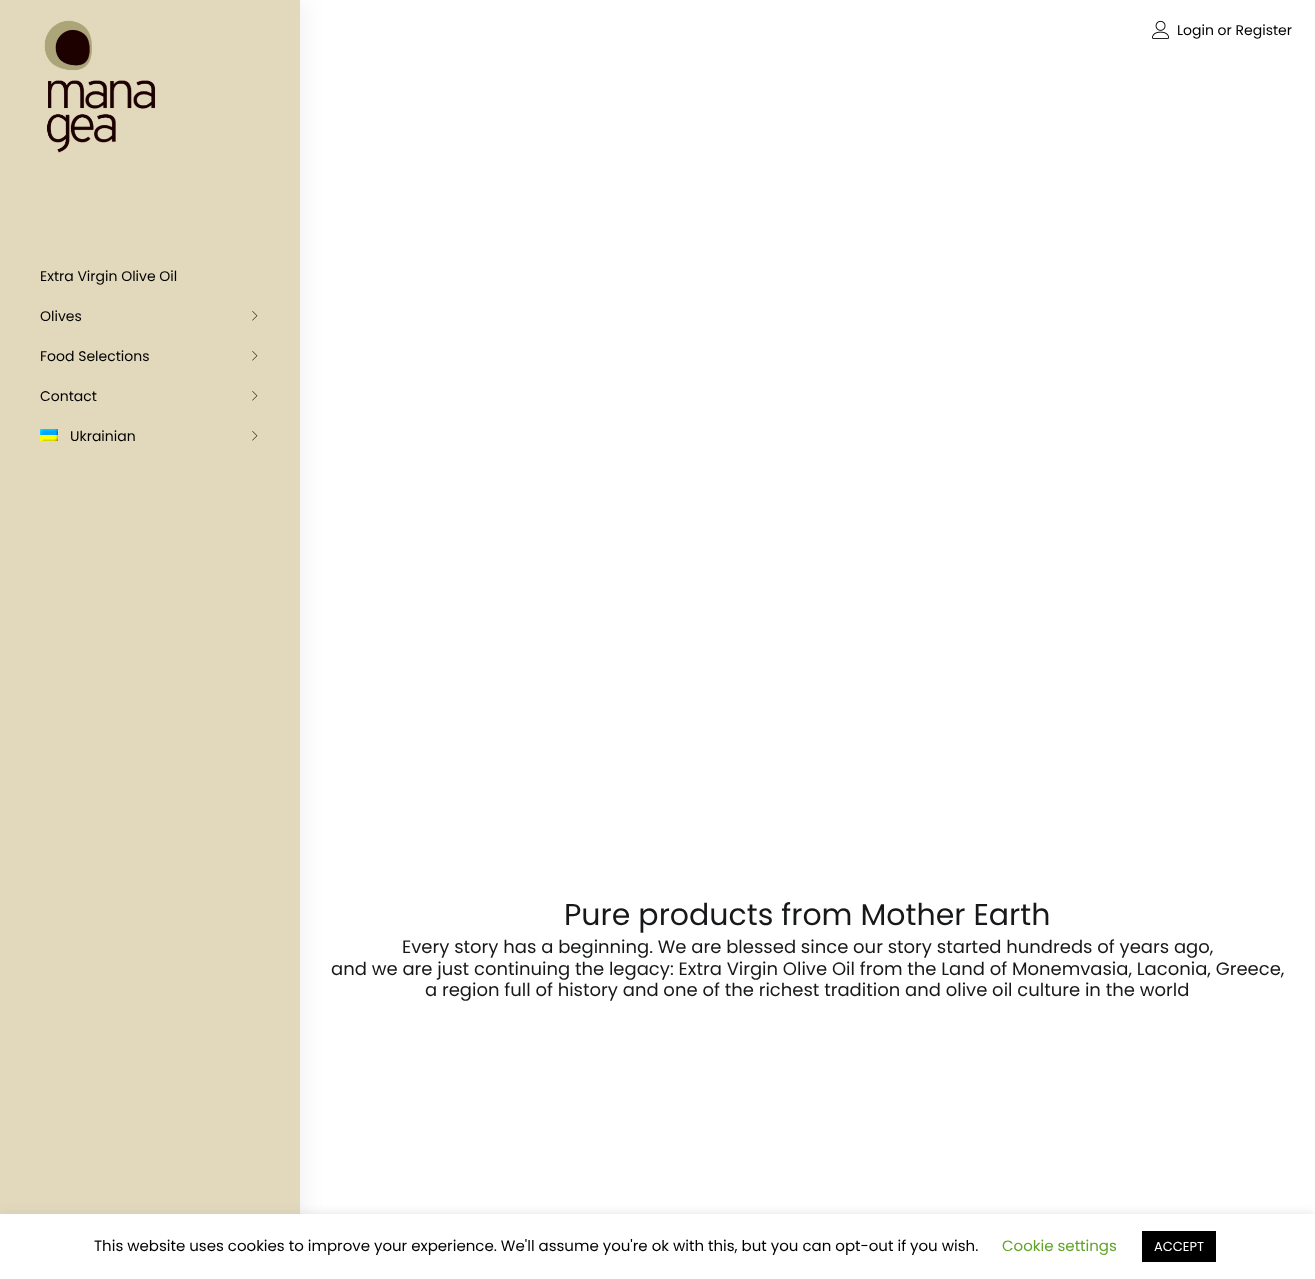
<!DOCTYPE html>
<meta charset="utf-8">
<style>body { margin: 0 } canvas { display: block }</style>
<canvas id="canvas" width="1315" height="1279"></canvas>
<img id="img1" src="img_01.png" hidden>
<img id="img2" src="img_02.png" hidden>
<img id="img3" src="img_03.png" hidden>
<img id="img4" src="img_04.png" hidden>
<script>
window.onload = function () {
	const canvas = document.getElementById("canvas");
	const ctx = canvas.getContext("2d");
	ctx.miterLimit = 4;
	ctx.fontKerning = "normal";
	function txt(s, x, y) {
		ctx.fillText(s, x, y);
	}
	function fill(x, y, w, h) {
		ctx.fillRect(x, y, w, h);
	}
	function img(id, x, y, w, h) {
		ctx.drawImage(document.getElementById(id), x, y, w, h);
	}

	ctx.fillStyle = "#FFFFFF";
	fill(0, 0, 1315, 1279);
	img("img1", 1152, 20, 18, 19);
	ctx.fillStyle = "rgba(0, 0, 0, 0.05)";
	ctx.filter = "blur(10px)";
	ctx.beginPath();
	ctx.rect(5, 0, 300, 1279);
	ctx.fill();
	ctx.filter = "none";
	ctx.fillStyle = "#E2D9BC";
	fill(0, 0, 300, 1214);
	img("img2", 44, 20, 112, 133);
	img("img3", 252, 311, 6, 10);
	img("img3", 252, 351, 6, 10);
	img("img3", 252, 391, 6, 10);
	img("img4", 40, 429, 18, 12);
	img("img3", 252, 431, 6, 10);
	ctx.fillStyle = "rgba(172, 171, 171, 0.3)";
	ctx.filter = "blur(5px)";
	ctx.beginPath();
	ctx.rect(0, 1213, 1315, 65);
	ctx.fill();
	ctx.filter = "none";
	ctx.fillStyle = "#FFFFFF";
	fill(0, 1214, 1315, 65);
	ctx.fillStyle = "#000000";
	fill(1142, 1231, 74, 31);
	ctx.font = "14px Poppins";
	txt("Login or Register", 1177, 35);
	txt("Extra Virgin Olive Oil", 40, 281);
	txt("Olives", 40, 321);
	txt("Food Selections", 40, 361);
	txt("Contact", 40, 401);
	txt("Ukrainian", 70, 441);
	ctx.font = "30px Poppins";
	ctx.fillStyle = "#17181A";
	txt("Pure products from Mother Earth", 564, 925);
	ctx.font = "18px Poppins";
	txt("Every story has a beginning. We are blessed since our story started hundreds of years ago,", 402, 953);
	txt("and we are just continuing the legacy: Extra Virgin Olive Oil from the Land of Monemvasia, Laconia, Greece,", 331, 975);
	txt("a region full of history and one of the richest tradition and olive oil culture in the world", 425, 996);
	ctx.font = "15px Poppins";
	ctx.fillStyle = "#000000";
	txt("This website uses cookies to improve your experience. We'll assume you're ok with this, but you can opt-out if you wish.", 94, 1251);
	ctx.fillStyle = "#62A329";
	txt("Cookie settings", 1002, 1251);
	ctx.font = "13px Poppins";
	ctx.fillStyle = "#FFFFFF";
	txt("ACCEPT", 1154, 1251);
};
</script>
